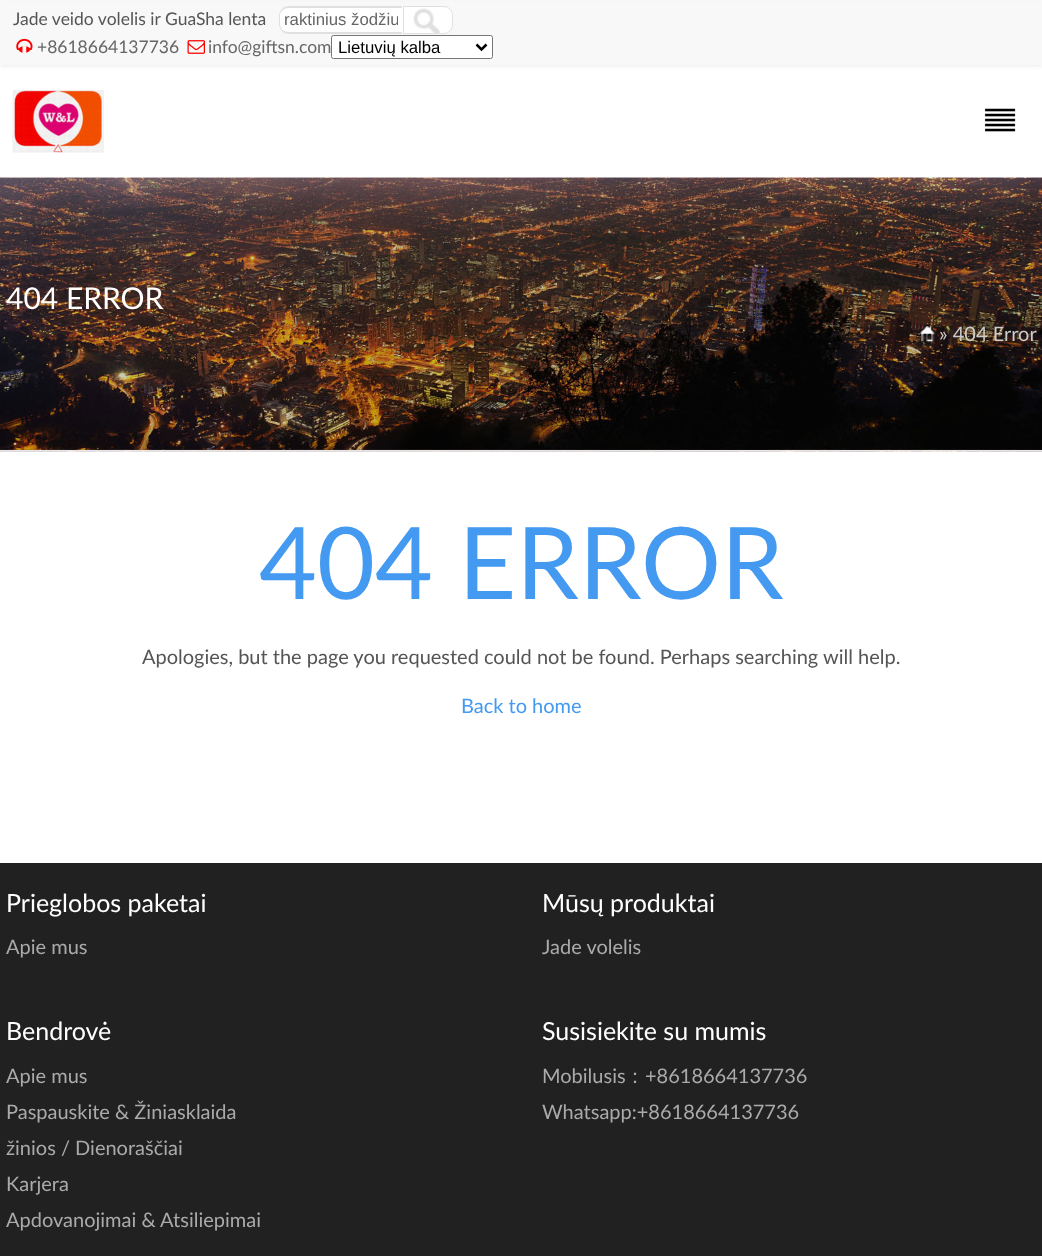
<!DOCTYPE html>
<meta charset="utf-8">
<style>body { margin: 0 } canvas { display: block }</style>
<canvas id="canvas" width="1042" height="1256"></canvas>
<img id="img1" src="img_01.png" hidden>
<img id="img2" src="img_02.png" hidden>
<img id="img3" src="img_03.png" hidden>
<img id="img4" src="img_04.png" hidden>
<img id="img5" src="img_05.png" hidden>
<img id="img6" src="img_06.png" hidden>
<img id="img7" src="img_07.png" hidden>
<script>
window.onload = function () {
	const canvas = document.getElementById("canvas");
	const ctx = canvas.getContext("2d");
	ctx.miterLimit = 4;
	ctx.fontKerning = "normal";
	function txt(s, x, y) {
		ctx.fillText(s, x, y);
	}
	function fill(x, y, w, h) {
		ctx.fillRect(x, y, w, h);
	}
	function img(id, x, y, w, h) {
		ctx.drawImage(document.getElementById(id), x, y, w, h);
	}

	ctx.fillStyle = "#FFFFFF";
	fill(0, 0, 1042, 1256);
	ctx.fillStyle = "rgba(51, 51, 51, 0.1)";
	ctx.filter = "blur(2px)";
	ctx.beginPath();
	ctx.rect(0, 1, 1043, 65);
	ctx.fill();
	ctx.filter = "none";
	ctx.fillStyle = "#F8F8F8";
	fill(0, 1, 1042, 64);
	ctx.fillStyle = "#FFFFFF";
	ctx.beginPath();
	ctx.roundRect(279, 6, 124, 28, [10, 0, 0, 10]);
	ctx.fill();
	ctx.fillStyle = "#E0E0E0";
	ctx.beginPath();
	ctx.moveTo(289, 6);
	ctx.lineTo(402, 6);
	ctx.lineTo(402, 34);
	ctx.lineTo(289, 34);
	ctx.bezierCurveTo(283, 34, 279, 29, 279, 24);
	ctx.lineTo(279, 16);
	ctx.bezierCurveTo(279, 11, 283, 6, 289, 6);
	ctx.closePath();
	ctx.moveTo(289, 8);
	ctx.lineTo(402, 8);
	ctx.lineTo(402, 32);
	ctx.lineTo(289, 32);
	ctx.bezierCurveTo(284, 32, 280, 29, 280, 24);
	ctx.lineTo(280, 16);
	ctx.bezierCurveTo(280, 11, 284, 8, 289, 8);
	ctx.closePath();
	ctx.fill("evenodd");
	ctx.fillStyle = "#FFFFFF";
	ctx.beginPath();
	ctx.roundRect(403, 6, 50, 28, [0, 9, 9, 0]);
	ctx.fill();
	img("img1", 413, 8, 27, 25);
	ctx.beginPath();
	ctx.roundRect(403.5, 6.5, 49, 27, [0, 8.5, 8.5, 0]);
	ctx.strokeStyle = "#E0E0E0";
	ctx.stroke();
	img("img2", 16, 38, 17, 15);
	img("img3", 187, 40, 18, 14);
	ctx.beginPath();
	ctx.roundRect(331.5, 35.5, 161, 23, 2);
	ctx.fill();
	ctx.strokeStyle = "#767676";
	ctx.stroke();
	ctx.beginPath();
	ctx.moveTo(476.5, 44.5);
	ctx.lineTo(481.5, 49.5);
	ctx.lineTo(486.5, 44.5);
	ctx.strokeStyle = "#000000";
	ctx.lineWidth = 2.5;
	ctx.stroke();
	img("img4", 12, 90, 92, 63);
	img("img5", 984, 108, 32, 24);
	img("img6", 0, 177, 1042, 275);
	ctx.fillStyle = "#E5E5E5";
	fill(0, 450, 1042, 1);
	img("img7", 918, 323, 16, 19);
	ctx.fillStyle = "#212121";
	fill(0, 863, 1042, 393);
	ctx.font = "17.5px Lato";
	ctx.fillStyle = "#555555";
	txt("Jade veido volelis ir GuaSha lenta", 13, 25);
	ctx.save();
	ctx.beginPath();
	ctx.rect(285, 11, 113, 18);
	ctx.clip();
	ctx.font = "16.75px Liberation Sans";
	ctx.fillStyle = "#666666";
	txt("raktinius žodžiu", 284, 25);
	ctx.restore();
	ctx.fillStyle = "#666666";
	txt("+8618664137736", 37, 53);
	txt("info@giftsn.com", 208, 53);
	ctx.font = "16.75px Liberation Sans";
	ctx.fillStyle = "#000000";
	txt("Lietuvių kalba", 338, 53);
	ctx.font = "30px Lato";
	ctx.fillStyle = "#FFFFFF";
	txt("404 ERROR", 6, 309);
	ctx.font = "20px Lato";
	ctx.fillStyle = "#CCCCCC";
	txt("» 404 Error", 939, 341);
	ctx.font = "100px Lato";
	ctx.fillStyle = "#4499F0";
	txt("404 ERROR", 259, 599);
	ctx.font = "20px Lato";
	ctx.fillStyle = "#555555";
	txt("Apologies, but the page you requested could not be found. Perhaps searching will help.", 142, 664);
	ctx.fillStyle = "#4499F0";
	txt("Back to home", 461, 713);
	ctx.font = "25px Lato";
	ctx.fillStyle = "#FFFFFF";
	txt("Prieglobos paketai", 6, 912);
	ctx.font = "20px Lato";
	ctx.fillStyle = "#AAAAAA";
	txt("Apie mus", 6, 954);
	ctx.font = "25px Lato";
	ctx.fillStyle = "#FFFFFF";
	txt("Mūsų produktai", 542, 912);
	ctx.font = "20px Lato";
	ctx.fillStyle = "#AAAAAA";
	txt("Jade volelis", 542, 954);
	ctx.font = "25px Lato";
	ctx.fillStyle = "#FFFFFF";
	txt("Bendrovė", 6, 1040);
	ctx.font = "20px Lato";
	ctx.fillStyle = "#AAAAAA";
	txt("Apie mus", 6, 1083);
	txt("Paspauskite & Žiniasklaida", 6, 1119);
	txt("žinios / Dienoraščiai", 6, 1155);
	txt("Karjera", 6, 1191);
	txt("Apdovanojimai & Atsiliepimai", 6, 1227);
	ctx.font = "25px Lato";
	ctx.fillStyle = "#FFFFFF";
	txt("Susisiekite su mumis", 542, 1040);
	ctx.font = "20px Lato";
	ctx.fillStyle = "#AAAAAA";
	txt("Mobilusis", 542, 1083);
	ctx.font = "500 20px WenQuanYi Zen Hei";
	txt("：", 625, 1083);
	ctx.font = "20px Lato";
	txt("+8618664137736", 645, 1083);
	txt("Whatsapp:+8618664137736", 542, 1119);
};
</script>
